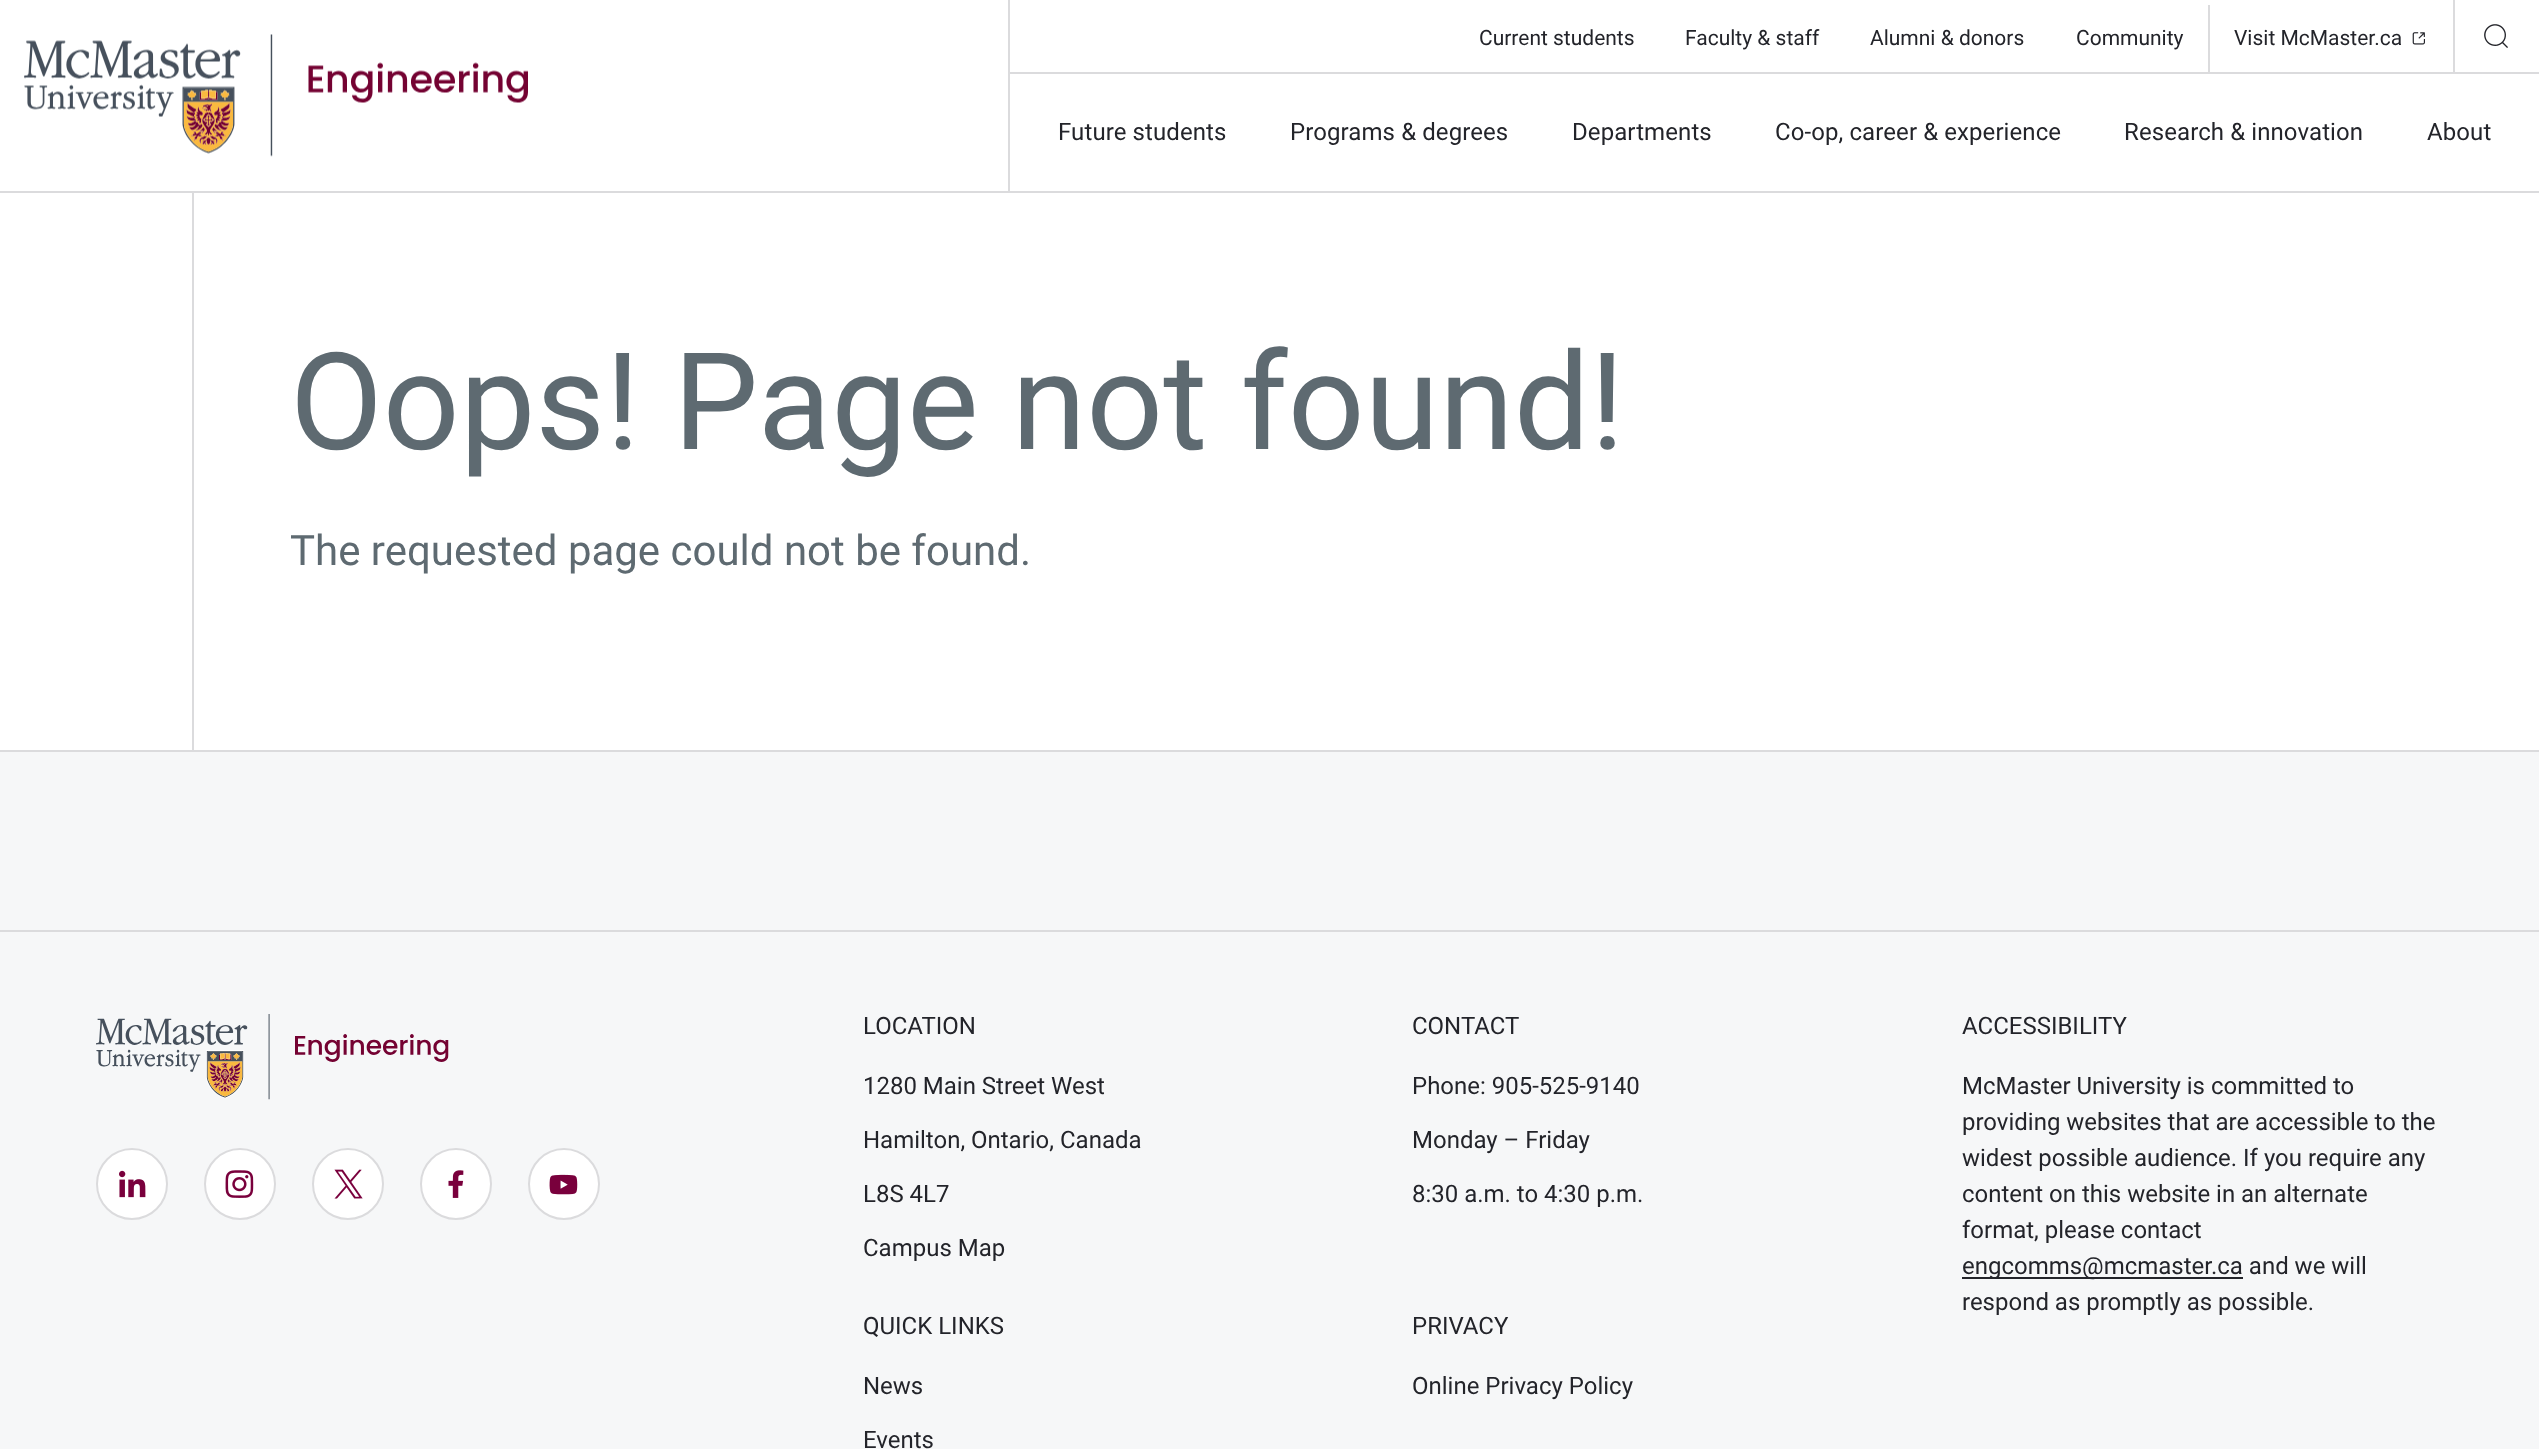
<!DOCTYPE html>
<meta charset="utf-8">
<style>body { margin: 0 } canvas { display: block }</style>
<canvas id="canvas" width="2539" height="1449"></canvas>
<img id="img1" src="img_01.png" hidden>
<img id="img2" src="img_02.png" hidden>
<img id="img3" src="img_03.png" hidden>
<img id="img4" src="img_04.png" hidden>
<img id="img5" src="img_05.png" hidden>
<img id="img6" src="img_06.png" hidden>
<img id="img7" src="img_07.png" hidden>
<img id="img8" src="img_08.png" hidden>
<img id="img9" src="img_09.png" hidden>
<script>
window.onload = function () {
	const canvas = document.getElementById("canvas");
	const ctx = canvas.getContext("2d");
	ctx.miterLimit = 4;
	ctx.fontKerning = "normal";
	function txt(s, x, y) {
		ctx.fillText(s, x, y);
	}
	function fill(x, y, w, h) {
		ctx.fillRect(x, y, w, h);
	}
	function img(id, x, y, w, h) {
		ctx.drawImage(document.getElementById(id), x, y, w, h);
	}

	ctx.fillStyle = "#FFFFFF";
	fill(0, 0, 2539, 1449);
	ctx.fillStyle = "#DBDBDD";
	fill(192, 192, 2, 558);
	fill(0, 191, 2539, 2);
	img("img1", 24, 34, 504, 123);
	fill(1008, 0, 2, 191);
	fill(2208, 5, 2, 67);
	img("img2", 2412, 32, 13, 13);
	fill(2453, 0, 2, 72);
	img("img3", 2484, 24, 24, 24);
	fill(1010, 72, 1529, 2);
	fill(0, 750, 2539, 2);
	ctx.fillStyle = "#F6F7F8";
	fill(0, 752, 2539, 178);
	ctx.fillStyle = "#DBDBDD";
	fill(0, 930, 2539, 2);
	ctx.fillStyle = "#F6F7F8";
	fill(0, 932, 2539, 517);
	img("img4", 96, 1014, 353, 86);
	ctx.fillStyle = "#FFFFFF";
	ctx.beginPath();
	ctx.arc(132, 1184, 35, 0, Math.PI * 2);
	ctx.fill();
	ctx.strokeStyle = "#DBDBDD";
	ctx.lineWidth = 2;
	ctx.stroke();
	img("img5", 119, 1170, 27, 28);
	ctx.beginPath();
	ctx.arc(240, 1184, 35, 0, Math.PI * 2);
	ctx.fill();
	ctx.stroke();
	img("img6", 225, 1170, 29, 28);
	ctx.beginPath();
	ctx.arc(348, 1184, 35, 0, Math.PI * 2);
	ctx.fill();
	ctx.stroke();
	img("img7", 334, 1169, 29, 30);
	ctx.beginPath();
	ctx.arc(456, 1184, 35, 0, Math.PI * 2);
	ctx.fill();
	ctx.stroke();
	img("img8", 448, 1170, 16, 28);
	ctx.beginPath();
	ctx.arc(564, 1184, 35, 0, Math.PI * 2);
	ctx.fill();
	ctx.stroke();
	img("img9", 549, 1174, 29, 21);
	ctx.fillStyle = "#23242A";
	fill(1962, 1277, 281, 2);
	ctx.font = "21px Roboto";
	txt("Current students", 1479, 45);
	txt("Faculty & staff", 1685, 45);
	txt("Alumni & donors", 1870, 45);
	txt("Community", 2076, 45);
	txt("Visit McMaster.ca", 2234, 45);
	ctx.letterSpacing = "0.1px";
	ctx.font = "24px Roboto";
	txt("Future students", 1058, 140);
	txt("Programs & degrees", 1290, 140);
	txt("Departments", 1572, 140);
	txt("Co-op, career & experience", 1775, 140);
	txt("Research & innovation", 2124, 140);
	txt("About", 2427, 140);
	ctx.letterSpacing = "0px";
	ctx.font = "135px Roboto";
	ctx.fillStyle = "#5E6A71";
	txt("Oops! Page not found!", 290, 449);
	ctx.font = "42px Roboto";
	txt("The requested page could not be found.", 290, 565);
	ctx.font = "24px Roboto";
	ctx.fillStyle = "#23242A";
	txt("LOCATION", 863, 1034);
	txt("1280 Main Street West", 863, 1094);
	txt("Hamilton, Ontario, Canada", 863, 1148);
	txt("L8S 4L7", 863, 1202);
	txt("Campus Map", 863, 1256);
	txt("CONTACT", 1412, 1034);
	txt("Phone: 905-525-9140", 1412, 1094);
	txt("Monday – Friday", 1412, 1148);
	txt("8:30 a.m. to 4:30 p.m.", 1412, 1202);
	txt("QUICK LINKS", 863, 1334);
	txt("News", 863, 1394);
	txt("Events", 863, 1448);
	txt("PRIVACY", 1412, 1334);
	txt("Online Privacy Policy", 1412, 1394);
	txt("ACCESSIBILITY", 1962, 1034);
	txt("McMaster University is committed to", 1962, 1094);
	txt("providing websites that are accessible to the", 1962, 1130);
	txt("widest possible audience. If you require any", 1962, 1166);
	txt("content on this website in an alternate", 1962, 1202);
	txt("format, please contact", 1962, 1238);
	txt("engcomms@mcmaster.ca and we will", 1962, 1274);
	txt("respond as promptly as possible.", 1962, 1310);
};
</script>
